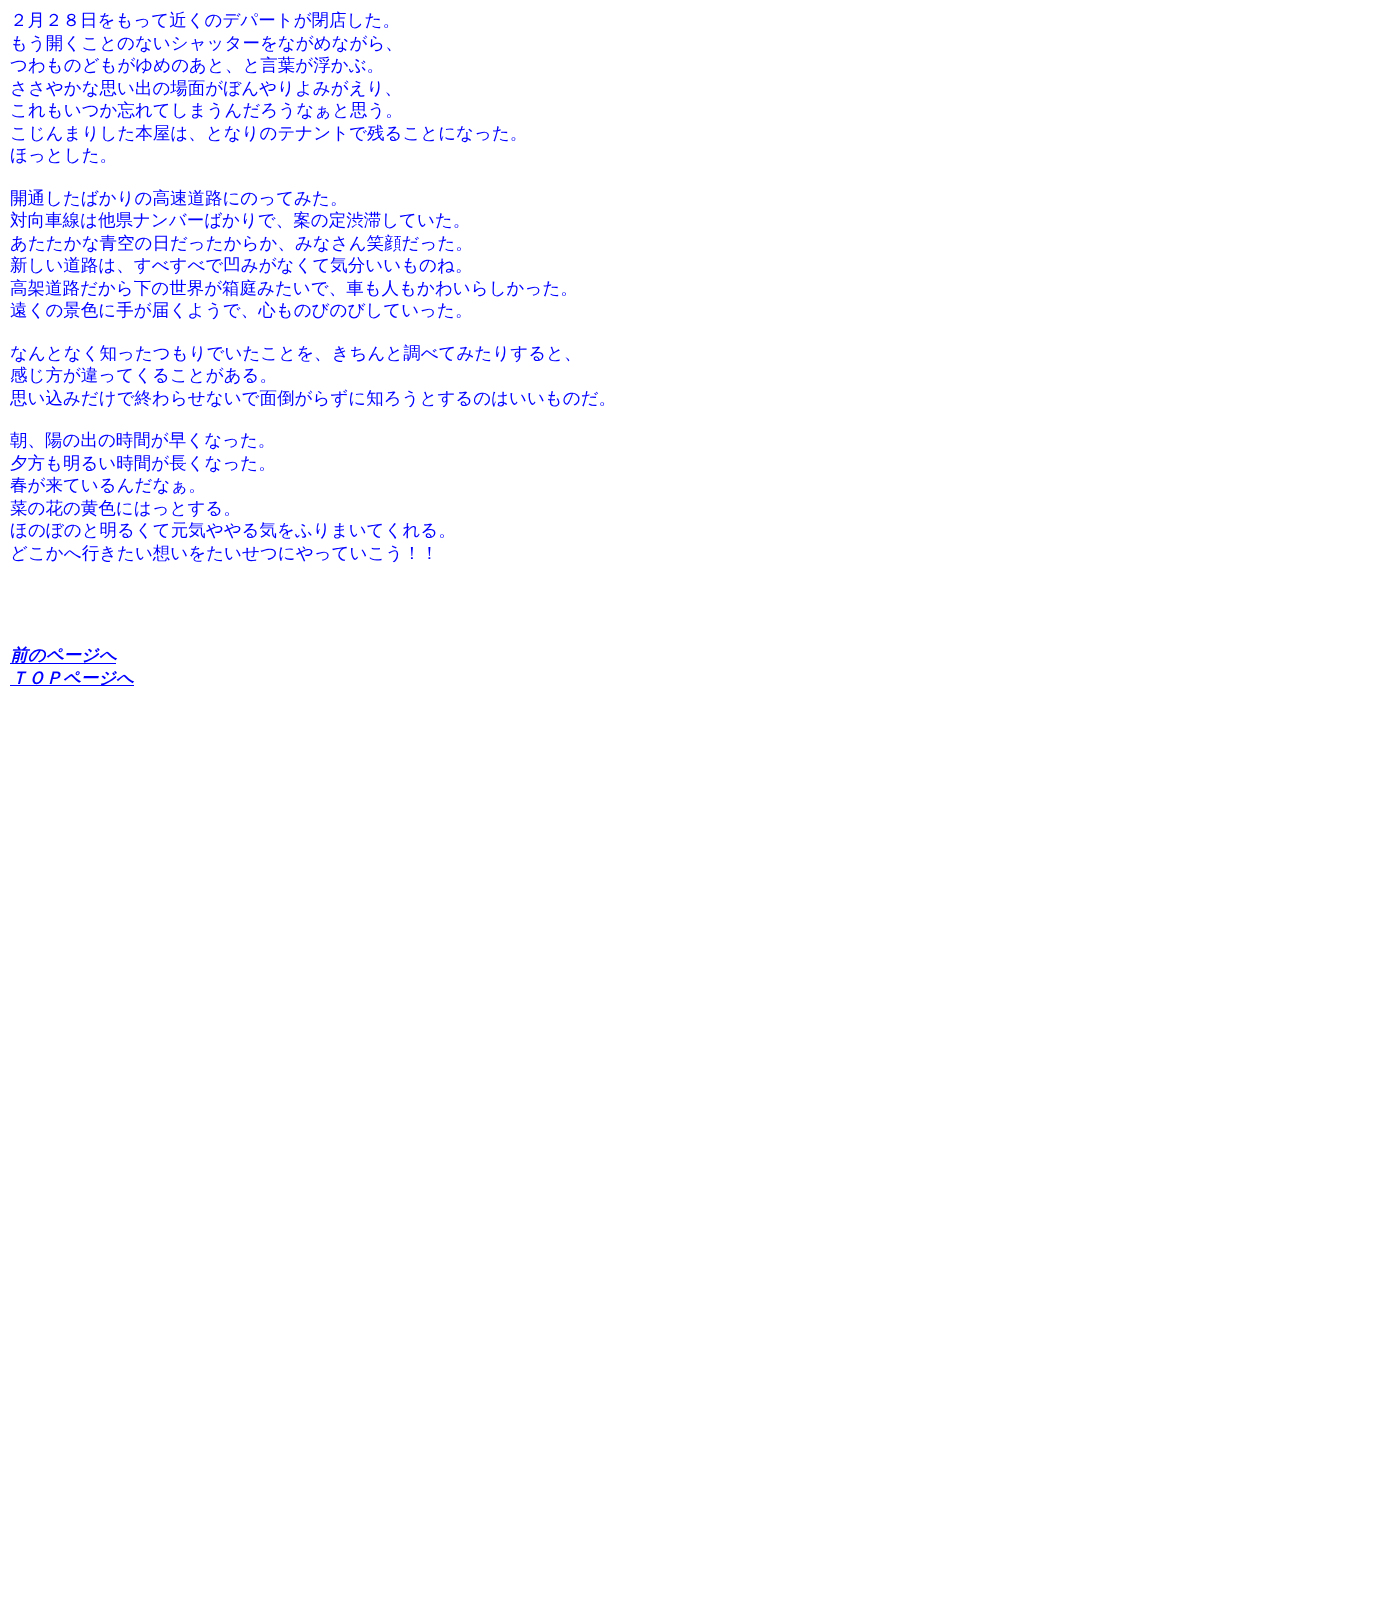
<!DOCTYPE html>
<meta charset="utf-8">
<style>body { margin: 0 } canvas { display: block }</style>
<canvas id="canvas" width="1390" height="1609"></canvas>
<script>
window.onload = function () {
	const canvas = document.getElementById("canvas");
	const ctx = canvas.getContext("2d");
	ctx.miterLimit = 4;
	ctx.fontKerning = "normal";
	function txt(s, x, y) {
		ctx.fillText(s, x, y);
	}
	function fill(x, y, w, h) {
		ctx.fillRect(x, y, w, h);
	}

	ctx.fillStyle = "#FFFFFF";
	fill(0, 0, 1390, 1609);
	ctx.fillStyle = "#0000FF";
	fill(10, 663, 106, 1);
	fill(10, 685, 124, 1);
	ctx.font = "500 17.5px WenQuanYi Zen Hei";
	txt("２月２８日をもって近くのデパートが閉店した。", 10, 26);
	txt("もう開くことのないシャッターをながめながら、", 10, 49);
	txt("つわものどもがゆめのあと、と言葉が浮かぶ。", 10, 71);
	txt("ささやかな思い出の場面がぼんやりよみがえり、", 10, 94);
	txt("これもいつか忘れてしまうんだろうなぁと思う。", 10, 116);
	txt("こじんまりした本屋は、となりのテナントで残ることになった。", 10, 139);
	txt("ほっとした。", 10, 161);
	txt("開通したばかりの高速道路にのってみた。", 10, 204);
	txt("対向車線は他県ナンバーばかりで、案の定渋滞していた。", 10, 226);
	txt("あたたかな青空の日だったからか、みなさん笑顔だった。", 10, 249);
	txt("新しい道路は、すべすべで凹みがなくて気分いいものね。", 10, 271);
	txt("高架道路だから下の世界が箱庭みたいで、車も人もかわいらしかった。", 10, 294);
	txt("遠くの景色に手が届くようで、心ものびのびしていった。", 10, 316);
	txt("なんとなく知ったつもりでいたことを、きちんと調べてみたりすると、", 10, 359);
	txt("感じ方が違ってくることがある。", 10, 381);
	txt("思い込みだけで終わらせないで面倒がらずに知ろうとするのはいいものだ。", 10, 404);
	txt("朝、陽の出の時間が早くなった。", 10, 446);
	txt("夕方も明るい時間が長くなった。", 10, 469);
	txt("春が来ているんだなぁ。", 10, 491);
	txt("菜の花の黄色にはっとする。", 10, 514);
	txt("ほのぼのと明るくて元気ややる気をふりまいてくれる。", 10, 536);
	txt("どこかへ行きたい想いをたいせつにやっていこう！！", 10, 559);
	ctx.font = "italic bold 17.5px WenQuanYi Zen Hei";
	txt("前のページへ", 10, 661);
	txt("ＴＯＰページへ", 10, 684);
};
</script>
